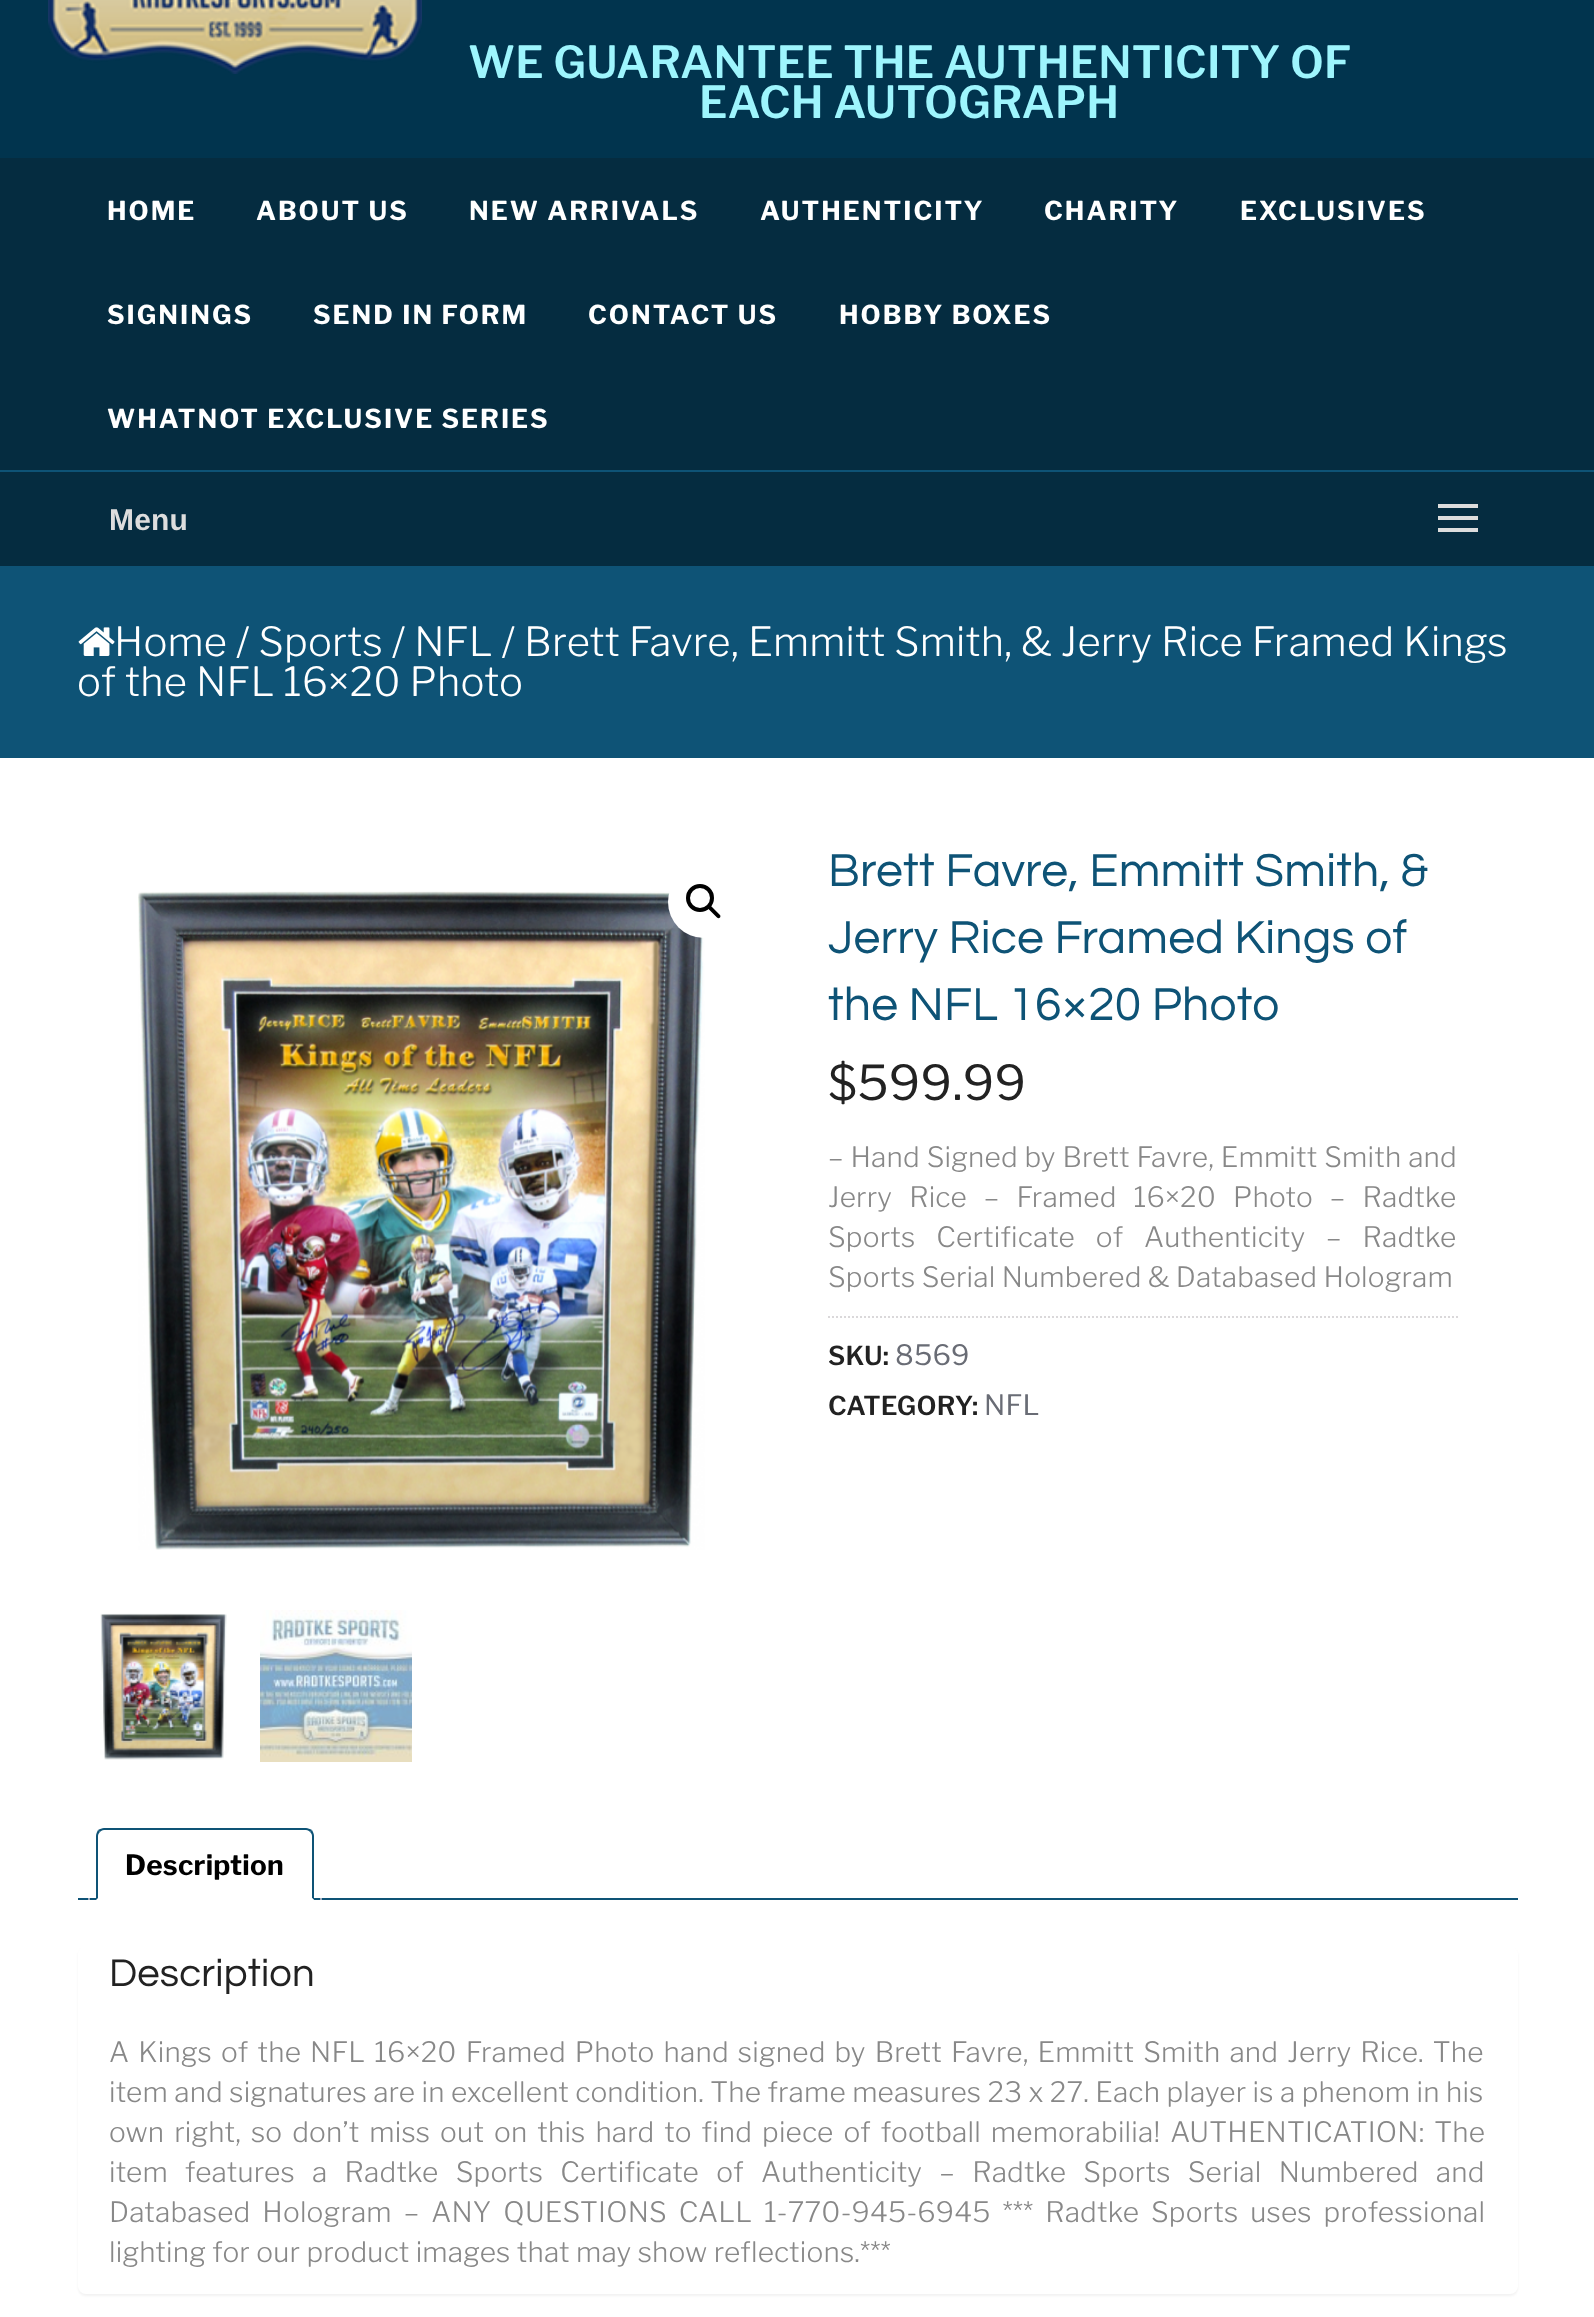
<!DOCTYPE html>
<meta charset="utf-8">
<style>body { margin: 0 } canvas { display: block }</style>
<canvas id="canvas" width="1594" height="2317"></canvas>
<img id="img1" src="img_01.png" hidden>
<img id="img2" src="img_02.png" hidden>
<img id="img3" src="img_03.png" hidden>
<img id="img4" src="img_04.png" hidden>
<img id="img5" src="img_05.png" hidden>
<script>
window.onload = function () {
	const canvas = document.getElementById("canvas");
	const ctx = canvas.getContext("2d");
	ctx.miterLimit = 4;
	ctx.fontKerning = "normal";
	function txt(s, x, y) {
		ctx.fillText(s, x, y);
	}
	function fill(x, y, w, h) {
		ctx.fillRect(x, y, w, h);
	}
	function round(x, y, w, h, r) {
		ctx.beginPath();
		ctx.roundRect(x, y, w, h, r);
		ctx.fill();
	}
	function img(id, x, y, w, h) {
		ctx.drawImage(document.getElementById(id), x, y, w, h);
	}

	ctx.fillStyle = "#FFFFFF";
	fill(0, 0, 1594, 2317);
	ctx.fillStyle = "#01344E";
	fill(0, 0, 1594, 158);
	img("img1", 48, 0, 374, 74);
	ctx.fillStyle = "#052C40";
	fill(0, 158, 1594, 312);
	fill(0, 472, 1594, 94);
	ctx.fillStyle = "#0E5376";
	fill(0, 470, 1594, 2);
	ctx.fillStyle = "#DDDDDD";
	fill(1438, 504, 40, 4);
	fill(1438, 516, 40, 4);
	fill(1438, 528, 40, 4);
	ctx.fillStyle = "#0E5376";
	fill(0, 566, 1594, 192);
	img("img2", 78, 627, 37, 29);
	img("img3", 138, 891, 567, 659);
	ctx.fillStyle = "#FFFFFF";
	ctx.beginPath();
	ctx.arc(704, 902, 36, 0, Math.PI * 2);
	ctx.fill();
	ctx.beginPath();
	ctx.arc(700, 898, 12, 0, Math.PI * 2);
	ctx.strokeStyle = "#000000";
	ctx.lineWidth = 4;
	ctx.stroke();
	ctx.fillStyle = "#000000";
	ctx.beginPath();
	ctx.moveTo(708.5, 906.5);
	ctx.bezierCurveTo(709.5, 905.5, 710.5, 905.5, 711.5, 906.5);
	ctx.lineTo(720, 915);
	ctx.bezierCurveTo(720.5, 915.5, 720.5, 917, 720, 917.5);
	ctx.bezierCurveTo(719, 918.5, 718, 918.5, 717, 917.5);
	ctx.lineTo(708.5, 909);
	ctx.bezierCurveTo(707.5, 908.5, 707.5, 907, 708.5, 906.5);
	ctx.closePath();
	ctx.fill();
	img("img4", 100, 1613, 127, 147);
	img("img5", 260, 1610, 152, 152);
	ctx.beginPath();
	ctx.moveTo(828, 1317);
	ctx.lineTo(1458, 1317);
	ctx.strokeStyle = "#DAD8DA";
	ctx.lineWidth = 2;
	ctx.setLineDash([2, 2]);
	ctx.stroke();
	ctx.fillStyle = "#0E5376";
	fill(78, 1898, 1440, 2);
	ctx.fillStyle = "#FFFFFF";
	ctx.beginPath();
	ctx.roundRect(96, 1828, 218, 72, [8, 8, 0, 0]);
	ctx.fill();
	ctx.fillStyle = "#0E5376";
	ctx.beginPath();
	ctx.moveTo(104, 1828);
	ctx.bezierCurveTo(102, 1828, 100, 1829, 98, 1830);
	ctx.lineTo(100, 1832);
	ctx.bezierCurveTo(101, 1831, 102, 1830, 104, 1830);
	ctx.lineTo(306, 1830);
	ctx.bezierCurveTo(308, 1830, 309, 1831, 310, 1832);
	ctx.lineTo(312, 1830);
	ctx.bezierCurveTo(310, 1829, 308, 1828, 306, 1828);
	ctx.closePath();
	ctx.fill();
	ctx.beginPath();
	ctx.moveTo(314, 1900);
	ctx.lineTo(314, 1836);
	ctx.bezierCurveTo(314, 1834, 313, 1832, 312, 1830);
	ctx.lineTo(310, 1832);
	ctx.bezierCurveTo(311, 1833, 312, 1834, 312, 1836);
	ctx.lineTo(312, 1898);
	ctx.closePath();
	ctx.fill();
	ctx.fillStyle = "#FFFFFF";
	ctx.beginPath();
	ctx.moveTo(314, 1900);
	ctx.lineTo(312, 1898);
	ctx.lineTo(98, 1898);
	ctx.lineTo(96, 1900);
	ctx.closePath();
	ctx.fill();
	ctx.fillStyle = "#0E5376";
	ctx.beginPath();
	ctx.moveTo(96, 1900);
	ctx.lineTo(98, 1898);
	ctx.lineTo(98, 1836);
	ctx.bezierCurveTo(98, 1834, 99, 1833, 100, 1832);
	ctx.lineTo(98, 1830);
	ctx.bezierCurveTo(97, 1832, 96, 1834, 96, 1836);
	ctx.closePath();
	ctx.fill();
	ctx.fillStyle = "#CFC8D8";
	ctx.beginPath();
	ctx.arc(89, 1899, 1, 0, Math.PI * 2);
	ctx.fill();
	ctx.beginPath();
	ctx.arc(321, 1899, 1, 0, Math.PI * 2);
	ctx.fill();
	ctx.fillStyle = "rgba(0, 0, 0, 0.05)";
	ctx.filter = "blur(1px)";
	ctx.beginPath();
	ctx.roundRect(78, 1948, 1440, 348, 8);
	ctx.fill();
	ctx.filter = "none";
	ctx.fillStyle = "#FFFFFF";
	round(78, 1946, 1440, 348, 8);
	ctx.letterSpacing = "0.2px";
	ctx.font = "600 44px Libre Franklin";
	ctx.fillStyle = "#9EF5FD";
	txt("WE GUARANTEE THE AUTHENTICITY OF", 468, 78);
	txt("EACH AUTOGRAPH", 699, 118);
	ctx.letterSpacing = "2px";
	ctx.font = "bold 26px Libre Franklin";
	ctx.fillStyle = "#FFFFFF";
	txt("HOME", 107, 220);
	txt("ABOUT US", 256, 220);
	txt("NEW ARRIVALS", 469, 220);
	txt("AUTHENTICITY", 760, 220);
	txt("CHARITY", 1044, 220);
	txt("EXCLUSIVES", 1240, 220);
	txt("SIGNINGS", 107, 324);
	txt("SEND IN FORM", 313, 324);
	txt("CONTACT US", 588, 324);
	txt("HOBBY BOXES", 839, 324);
	txt("WHATNOT EXCLUSIVE SERIES", 107, 428);
	ctx.letterSpacing = "0.2px";
	ctx.font = "bold 30px Liberation Sans";
	ctx.fillStyle = "#DDDDDD";
	txt("Menu", 109, 530);
	ctx.font = "300 40px Libre Franklin";
	ctx.fillStyle = "#FFFFFF";
	txt("Home / Sports / NFL / Brett Favre, Emmitt Smith, & Jerry Rice Framed Kings", 114, 656);
	txt("of the NFL 16×20 Photo", 77, 696);
	ctx.font = "48px Questrial";
	ctx.fillStyle = "#0E5376";
	txt("Brett Favre, Emmitt Smith, &", 828, 886);
	txt("Jerry Rice Framed Kings of", 828, 953);
	txt("the NFL 16×20 Photo", 828, 1020);
	ctx.font = "48px Libre Franklin";
	ctx.fillStyle = "#222222";
	txt("$599.99", 828, 1100);
	ctx.wordSpacing = "0.5px";
	ctx.font = "300 28px Libre Franklin";
	ctx.fillStyle = "#888888";
	txt("– Hand Signed by Brett Favre, Emmitt Smith and", 828, 1167);
	ctx.wordSpacing = "10.75px";
	txt("Jerry Rice – Framed 16×20 Photo – Radtke", 828, 1207);
	ctx.wordSpacing = "14.5px";
	txt("Sports Certificate of Authenticity – Radtke", 828, 1247);
	ctx.wordSpacing = "0px";
	txt("Sports Serial Numbered & Databased Hologram", 828, 1287);
	ctx.font = "600 26px Libre Franklin";
	ctx.fillStyle = "#222222";
	txt("SKU:", 828, 1365);
	ctx.font = "28px Libre Franklin";
	ctx.fillStyle = "#696C75";
	txt("8569", 895, 1365);
	ctx.font = "600 26px Libre Franklin";
	ctx.fillStyle = "#222222";
	txt("CATEGORY:", 828, 1415);
	ctx.font = "28px Libre Franklin";
	ctx.fillStyle = "#696C75";
	txt("NFL", 984, 1415);
	ctx.font = "bold 28px Libre Franklin";
	ctx.fillStyle = "#000000";
	txt("Description", 125, 1875);
	ctx.font = "40px Questrial";
	ctx.fillStyle = "#222222";
	txt("Description", 109, 1986);
	ctx.wordSpacing = "2.75px";
	ctx.font = "300 28px Libre Franklin";
	ctx.fillStyle = "#888888";
	txt("A Kings of the NFL 16×20 Framed Photo hand signed by Brett Favre, Emmitt Smith and Jerry Rice. The", 109, 2062);
	ctx.wordSpacing = "0px";
	txt("item and signatures are in excellent condition. The frame measures 23 x 27. Each player is a phenom in his", 109, 2102);
	ctx.wordSpacing = "3.6px";
	txt("own right, so don’t miss out on this hard to find piece of football memorabilia! AUTHENTICATION: The", 109, 2142);
	ctx.wordSpacing = "10.9px";
	txt("item features a Radtke Sports Certificate of Authenticity – Radtke Sports Serial Numbered and", 109, 2182);
	ctx.wordSpacing = "5.6px";
	txt("Databased Hologram – ANY QUESTIONS CALL 1-770-945-6945 *** Radtke Sports uses professional", 109, 2222);
	ctx.wordSpacing = "0px";
	txt("lighting for our product images that may show reflections.***", 109, 2262);
};
</script>
